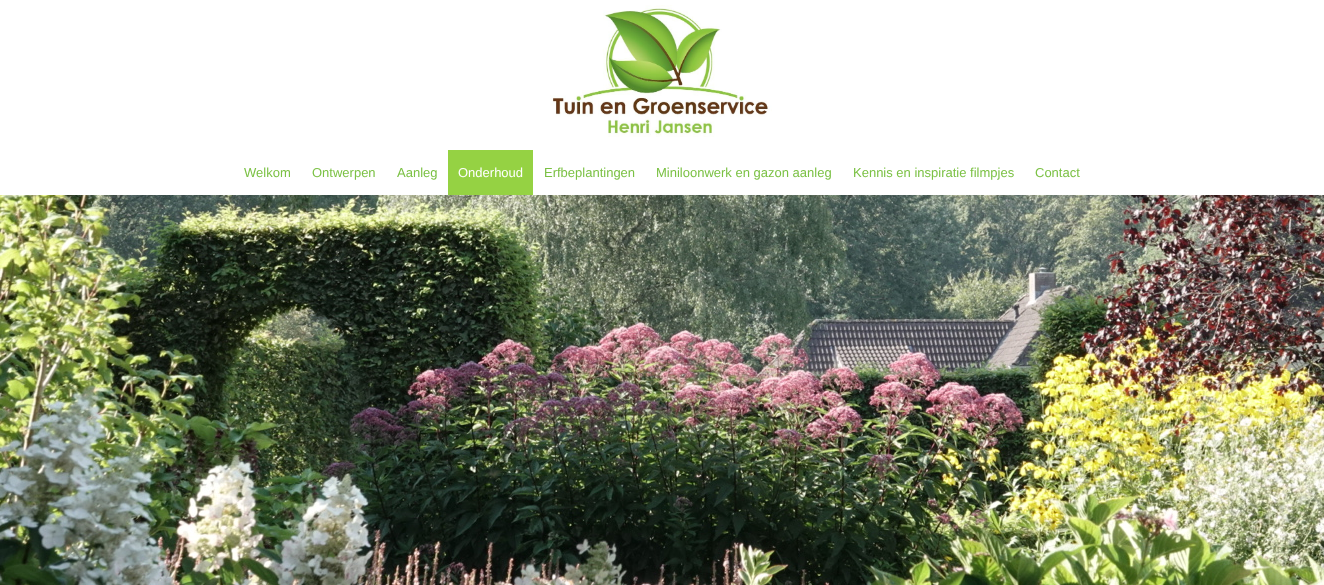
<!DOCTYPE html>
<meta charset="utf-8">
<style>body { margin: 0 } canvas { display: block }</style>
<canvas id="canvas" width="1324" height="585"></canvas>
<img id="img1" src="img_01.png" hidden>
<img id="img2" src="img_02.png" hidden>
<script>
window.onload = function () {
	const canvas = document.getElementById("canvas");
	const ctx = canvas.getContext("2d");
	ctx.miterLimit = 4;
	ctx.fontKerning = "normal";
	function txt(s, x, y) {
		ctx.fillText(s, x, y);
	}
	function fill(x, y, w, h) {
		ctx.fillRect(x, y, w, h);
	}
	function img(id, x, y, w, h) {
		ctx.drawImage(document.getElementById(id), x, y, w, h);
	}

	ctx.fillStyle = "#FFFFFF";
	fill(0, 0, 1324, 585);
	img("img1", 550, 5, 222, 132);
	ctx.fillStyle = "#95D243";
	fill(448, 150, 85, 45);
	img("img2", 0, 195, 1324, 390);
	ctx.font = "13px Liberation Sans";
	ctx.fillStyle = "#7BC144";
	txt("Welkom", 244, 177);
	txt("Ontwerpen", 312, 177);
	txt("Aanleg", 397, 177);
	ctx.fillStyle = "#FFFFFF";
	txt("Onderhoud", 458, 177);
	ctx.fillStyle = "#7BC144";
	txt("Erfbeplantingen", 544, 177);
	txt("Miniloonwerk en gazon aanleg", 656, 177);
	txt("Kennis en inspiratie filmpjes", 853, 177);
	txt("Contact", 1035, 177);
};
</script>
